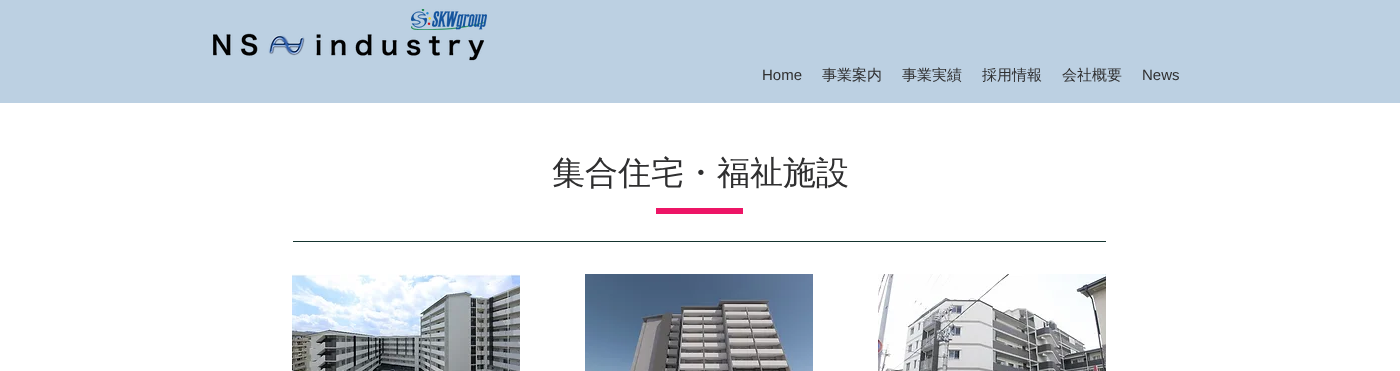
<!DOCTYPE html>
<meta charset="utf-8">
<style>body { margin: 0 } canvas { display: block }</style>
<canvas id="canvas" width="1400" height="371"></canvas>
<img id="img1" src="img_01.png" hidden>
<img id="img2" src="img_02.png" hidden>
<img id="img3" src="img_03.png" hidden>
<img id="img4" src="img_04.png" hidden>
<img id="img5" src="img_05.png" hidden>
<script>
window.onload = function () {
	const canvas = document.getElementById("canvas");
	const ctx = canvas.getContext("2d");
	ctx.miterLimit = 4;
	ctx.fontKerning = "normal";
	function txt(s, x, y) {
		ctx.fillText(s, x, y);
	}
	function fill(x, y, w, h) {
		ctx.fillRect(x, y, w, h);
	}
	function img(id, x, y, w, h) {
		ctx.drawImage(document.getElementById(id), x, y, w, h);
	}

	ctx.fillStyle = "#FFFFFF";
	fill(0, 0, 1400, 371);
	ctx.fillStyle = "#BCD0E2";
	fill(0, 0, 1400, 103);
	img("img1", 411, 9, 76, 21);
	img("img2", 213, 33, 271, 28);
	ctx.fillStyle = "#ED1566";
	fill(656, 208, 87, 6);
	ctx.fillStyle = "#15342F";
	fill(293, 241, 813, 1);
	img("img3", 292, 274, 228, 97);
	img("img4", 585, 274, 228, 97);
	img("img5", 878, 274, 228, 97);
	ctx.font = "15px Liberation Sans";
	ctx.fillStyle = "#2F2F30";
	txt("Home", 762, 80);
	ctx.font = "500 15px WenQuanYi Zen Hei";
	txt("事業案内", 822, 80);
	txt("事業実績", 902, 80);
	txt("採用情報", 982, 80);
	txt("会社概要", 1062, 80);
	ctx.font = "15px Liberation Sans";
	txt("News", 1142, 80);
	ctx.font = "500 33px WenQuanYi Zen Hei";
	txt("集合住宅・福祉施設", 552, 184);
};
</script>
